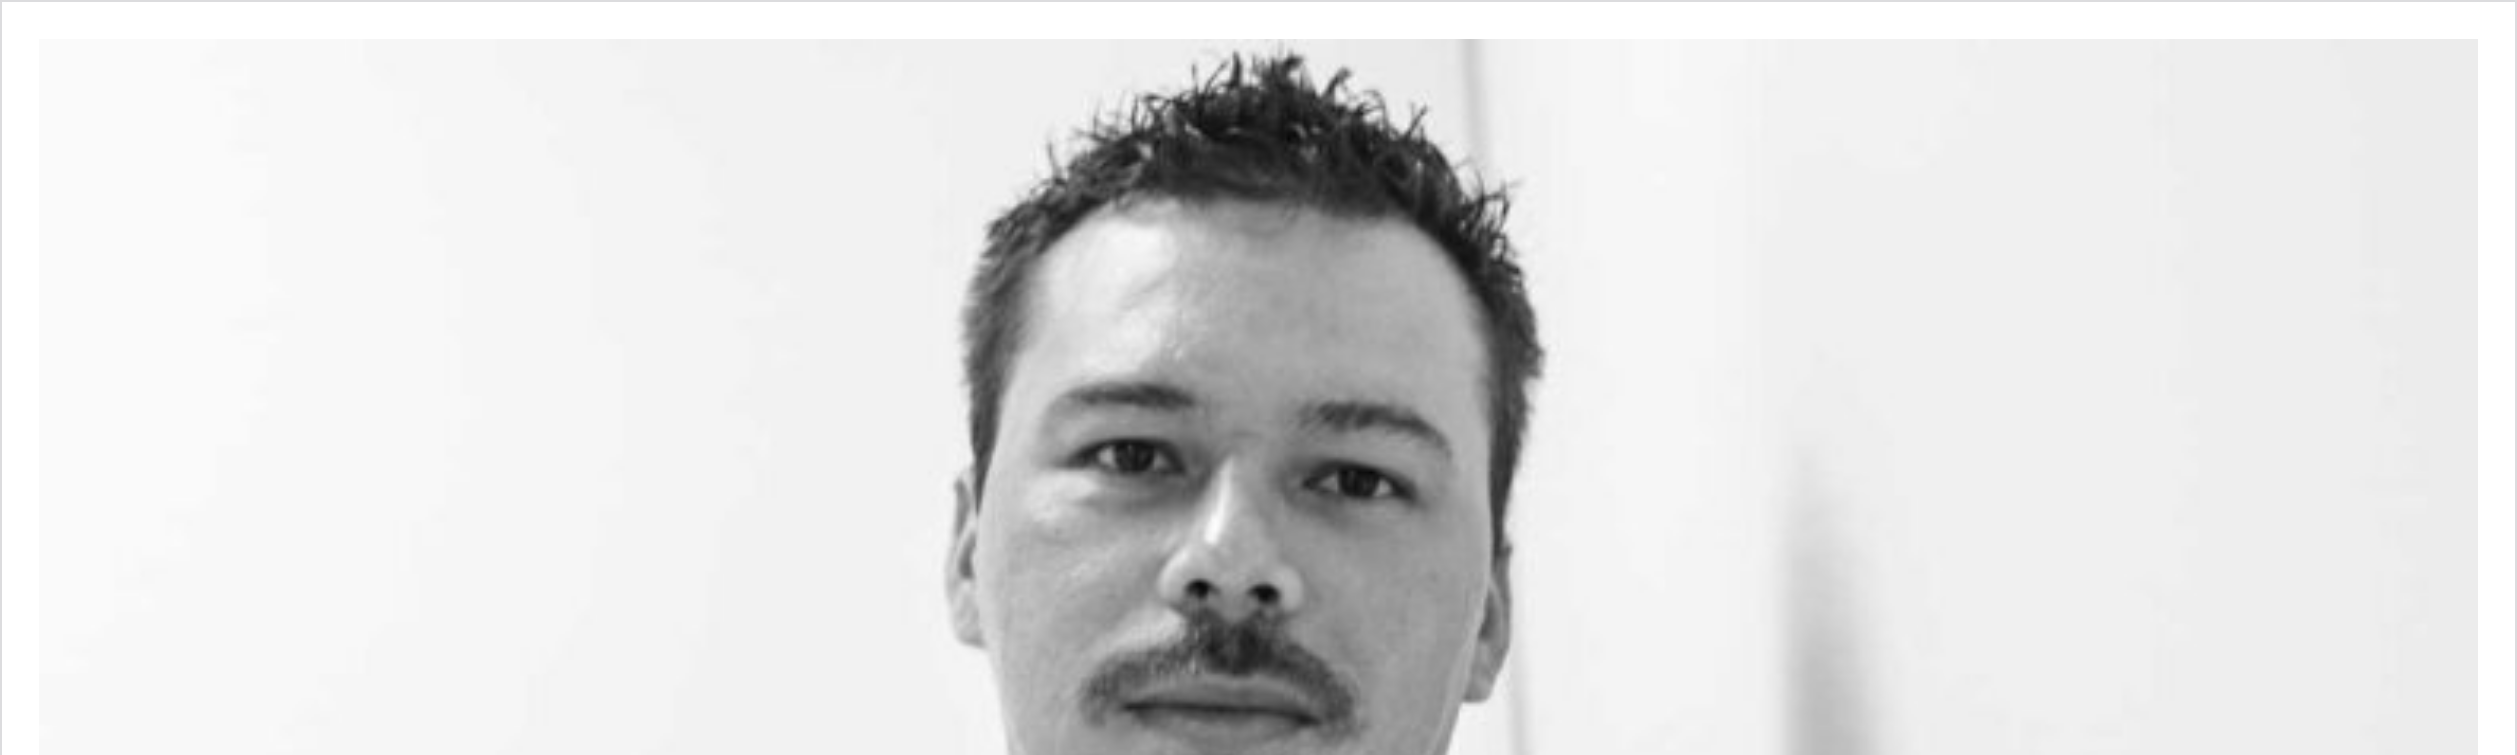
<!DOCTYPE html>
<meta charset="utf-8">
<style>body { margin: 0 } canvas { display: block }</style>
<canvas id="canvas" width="2517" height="755"></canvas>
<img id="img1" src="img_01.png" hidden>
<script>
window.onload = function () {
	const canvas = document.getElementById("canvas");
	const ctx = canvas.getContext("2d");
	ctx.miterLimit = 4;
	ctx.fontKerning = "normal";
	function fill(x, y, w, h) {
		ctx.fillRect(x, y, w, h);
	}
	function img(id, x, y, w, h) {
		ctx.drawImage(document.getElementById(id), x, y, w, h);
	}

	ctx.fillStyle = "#FFFFFF";
	fill(0, 0, 2517, 755);
	ctx.strokeStyle = "#DCDCDE";
	ctx.lineWidth = 2;
	ctx.strokeRect(1, 1, 2515, 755);
	img("img1", 39, 39, 2439, 716);
};
</script>
